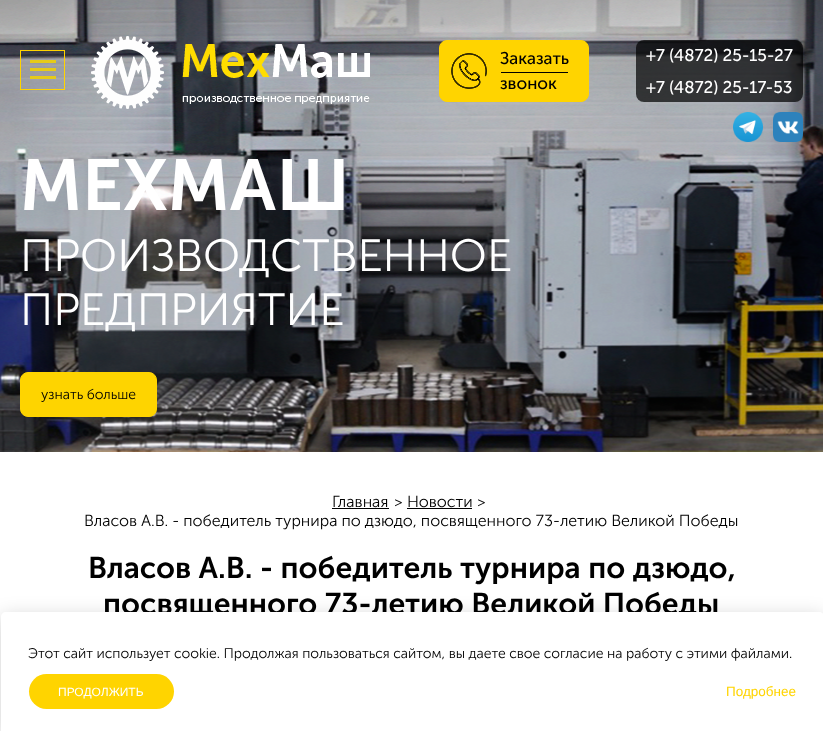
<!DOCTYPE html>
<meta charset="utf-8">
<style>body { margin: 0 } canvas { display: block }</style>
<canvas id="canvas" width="823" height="731"></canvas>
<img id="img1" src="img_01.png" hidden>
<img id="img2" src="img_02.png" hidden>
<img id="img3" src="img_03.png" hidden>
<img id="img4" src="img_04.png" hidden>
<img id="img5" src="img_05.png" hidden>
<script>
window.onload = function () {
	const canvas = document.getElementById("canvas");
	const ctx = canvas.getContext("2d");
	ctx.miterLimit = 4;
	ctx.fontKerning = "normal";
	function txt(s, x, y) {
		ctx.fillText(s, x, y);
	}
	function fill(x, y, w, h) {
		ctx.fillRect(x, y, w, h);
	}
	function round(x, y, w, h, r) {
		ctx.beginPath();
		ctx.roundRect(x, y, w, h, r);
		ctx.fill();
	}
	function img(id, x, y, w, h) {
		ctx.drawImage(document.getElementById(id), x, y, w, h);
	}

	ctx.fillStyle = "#FFFFFF";
	fill(0, 0, 823, 731);
	img("img1", 0, 0, 823, 452);
	ctx.strokeStyle = "#FFD400";
	ctx.strokeRect(20.5, 50.5, 44, 39);
	ctx.fillStyle = "#E6CB17";
	fill(30, 68, 26, 3);
	fill(30, 60, 26, 3);
	fill(30, 76, 26, 3);
	img("img2", 91, 36, 279, 73);
	ctx.fillStyle = "#FFD400";
	ctx.beginPath();
	ctx.roundRect(439.5, 40.5, 149, 61, 7.5);
	ctx.fill();
	ctx.stroke();
	img("img3", 451, 53, 36, 36);
	ctx.fillStyle = "#000000";
	fill(501, 72, 67, 1);
	ctx.fillStyle = "rgba(0, 0, 0, 0.7)";
	round(636, 40, 167, 62, 8);
	img("img4", 733, 112, 30, 30);
	img("img5", 773, 112, 30, 30);
	ctx.fillStyle = "#FED400";
	ctx.beginPath();
	ctx.roundRect(20.5, 372.5, 136, 44, 7.5);
	ctx.fill();
	ctx.stroke();
	ctx.fillStyle = "#000000";
	fill(332, 508, 57, 1);
	fill(407, 508, 65, 1);
	ctx.fillStyle = "rgba(0, 0, 0, 0.2)";
	ctx.filter = "blur(10px)";
	ctx.beginPath();
	ctx.roundRect(1, 617, 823, 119, 5);
	ctx.fill();
	ctx.filter = "none";
	ctx.font = "17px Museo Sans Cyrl";
	ctx.fillStyle = "#000000";
	txt("Заказать", 500, 64);
	txt("звонок", 500, 89);
	ctx.fillStyle = "#FFFFFF";
	txt("+7 (4872) 25-15-27", 646, 61);
	txt("+7 (4872) 25-17-53", 646, 93);
	ctx.font = "600 72px Museo Sans Cyrl";
	txt("МЕХМАШ", 20, 210);
	ctx.font = "300 45px Museo Sans Cyrl";
	txt("ПРОИЗВОДСТВЕННОЕ", 20, 271);
	txt("ПРЕДПРИЯТИЕ", 20, 325);
	ctx.font = "300 14px Museo Sans Cyrl";
	ctx.fillStyle = "#000000";
	txt("узнать больше", 41, 399);
	ctx.font = "300 16px Museo Sans Cyrl";
	txt("Главная", 332, 507);
	ctx.font = "300 15px Museo Sans Cyrl";
	txt(">", 394, 507);
	ctx.font = "300 16px Museo Sans Cyrl";
	txt("Новости", 407, 507);
	ctx.font = "300 15px Museo Sans Cyrl";
	txt(">", 477, 507);
	ctx.font = "300 16px Museo Sans Cyrl";
	txt("Власов А.В. - победитель турнира по дзюдо, посвященного 73-летию Великой Победы", 84, 526);
	ctx.font = "600 30px Museo Sans Cyrl";
	txt("Власов А.В. - победитель турнира по дзюдо,", 88, 578);
	txt("посвященного 73-летию Великой Победы", 103, 614);
	ctx.fillStyle = "#FFFFFF";
	ctx.beginPath();
	ctx.moveTo(6, 612);
	ctx.lineTo(819, 612);
	ctx.bezierCurveTo(822, 612, 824, 614, 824, 617);
	ctx.lineTo(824, 731);
	ctx.lineTo(1, 731);
	ctx.lineTo(1, 617);
	ctx.bezierCurveTo(1, 614, 3, 612, 6, 612);
	ctx.closePath();
	ctx.fill();
	ctx.font = "300 14px Museo Sans Cyrl";
	ctx.fillStyle = "#000000";
	txt("Этот сайт использует cookie. Продолжая пользоваться сайтом, вы даете свое согласие на работу с этими файлами.", 28, 658);
	ctx.fillStyle = "#FFD400";
	round(29, 674, 145, 35, 17.5);
	ctx.font = "12px Liberation Sans";
	ctx.fillStyle = "#FFFFFF";
	txt("ПРОДОЛЖИТЬ", 58, 696);
	ctx.font = "13.5px Liberation Sans";
	ctx.fillStyle = "#FFD400";
	txt("Подробнее", 726, 696);
};
</script>
